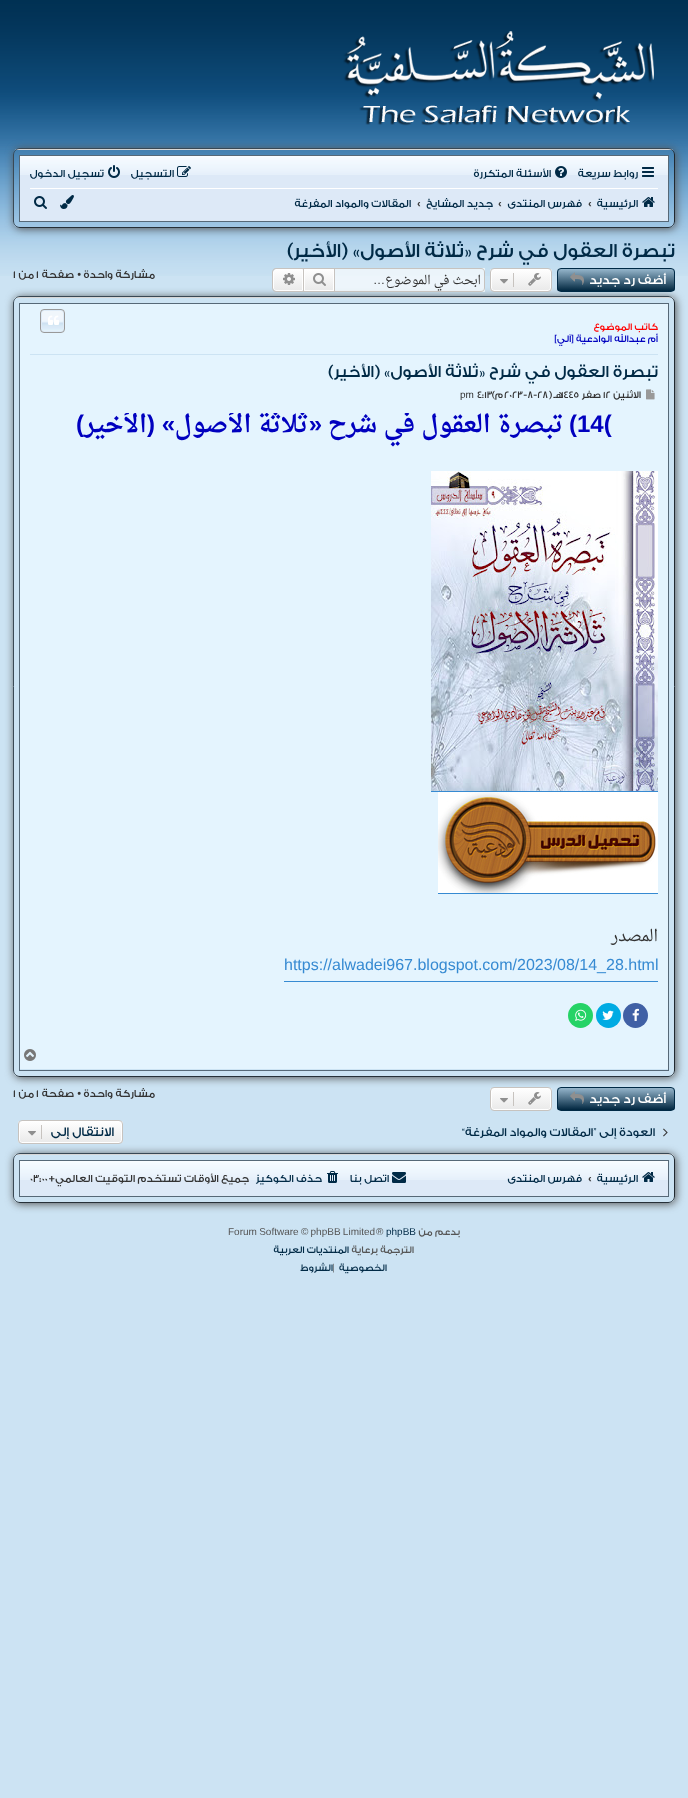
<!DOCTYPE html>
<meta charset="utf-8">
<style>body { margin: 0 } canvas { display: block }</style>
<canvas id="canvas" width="688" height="1798"></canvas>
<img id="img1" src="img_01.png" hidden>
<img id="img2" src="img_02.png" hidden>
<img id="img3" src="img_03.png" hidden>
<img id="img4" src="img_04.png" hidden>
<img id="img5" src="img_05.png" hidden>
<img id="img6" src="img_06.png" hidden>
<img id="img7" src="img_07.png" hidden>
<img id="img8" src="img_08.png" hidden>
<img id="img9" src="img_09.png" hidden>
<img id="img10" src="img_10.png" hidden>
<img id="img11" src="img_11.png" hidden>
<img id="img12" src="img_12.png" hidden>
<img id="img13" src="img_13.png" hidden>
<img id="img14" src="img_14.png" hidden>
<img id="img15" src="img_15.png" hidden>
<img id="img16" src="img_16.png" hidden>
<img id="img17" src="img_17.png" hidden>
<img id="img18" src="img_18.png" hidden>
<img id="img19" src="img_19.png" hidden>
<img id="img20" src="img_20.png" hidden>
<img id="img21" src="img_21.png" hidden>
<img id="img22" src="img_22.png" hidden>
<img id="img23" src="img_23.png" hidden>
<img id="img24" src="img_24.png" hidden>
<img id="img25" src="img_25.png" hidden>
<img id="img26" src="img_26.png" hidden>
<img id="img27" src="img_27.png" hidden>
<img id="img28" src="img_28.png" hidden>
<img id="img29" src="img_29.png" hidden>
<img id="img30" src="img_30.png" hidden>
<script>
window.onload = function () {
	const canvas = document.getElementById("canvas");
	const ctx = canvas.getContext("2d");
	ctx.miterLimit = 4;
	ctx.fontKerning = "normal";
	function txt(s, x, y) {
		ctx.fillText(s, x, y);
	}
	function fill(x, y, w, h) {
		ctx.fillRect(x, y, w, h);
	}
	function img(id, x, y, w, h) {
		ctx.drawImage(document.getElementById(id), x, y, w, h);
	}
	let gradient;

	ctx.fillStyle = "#CCE3F3";
	fill(0, 0, 688, 1798);
	img("img1", 0, 0, 688, 276);
	img("img2", 343, 31, 311, 95);
	ctx.save();
	ctx.beginPath();
	ctx.moveTo(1, 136);
	ctx.lineTo(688, 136);
	ctx.lineTo(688, 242);
	ctx.lineTo(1, 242);
	ctx.closePath();
	ctx.moveTo(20, 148);
	ctx.lineTo(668, 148);
	ctx.bezierCurveTo(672, 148, 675, 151, 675, 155);
	ctx.lineTo(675, 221);
	ctx.bezierCurveTo(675, 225, 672, 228, 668, 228);
	ctx.lineTo(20, 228);
	ctx.bezierCurveTo(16, 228, 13, 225, 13, 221);
	ctx.lineTo(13, 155);
	ctx.bezierCurveTo(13, 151, 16, 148, 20, 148);
	ctx.closePath();
	ctx.clip("evenodd");
	ctx.fillStyle = "#555555";
	ctx.filter = "blur(4px)";
	ctx.beginPath();
	ctx.roundRect(14, 149, 662, 80, 7);
	ctx.fill();
	ctx.filter = "none";
	ctx.restore();
	img("img3", 15, 149, 658, 1);
	ctx.beginPath();
	ctx.moveTo(15.5, 150.5);
	ctx.bezierCurveTo(16.5, 149, 18.5, 148.5, 20, 148.5);
	ctx.lineTo(668, 148.5);
	ctx.bezierCurveTo(669.5, 148.5, 671.5, 149, 672.5, 150.5);
	ctx.strokeStyle = "#394854";
	ctx.stroke();
	ctx.beginPath();
	ctx.moveTo(672.5, 150.5);
	ctx.bezierCurveTo(674, 151.5, 674.5, 153.5, 674.5, 155);
	ctx.lineTo(674.5, 221);
	ctx.bezierCurveTo(674.5, 222.5, 674, 224.5, 672.5, 225.5);
	ctx.strokeStyle = "#212930";
	ctx.stroke();
	ctx.beginPath();
	ctx.moveTo(672.5, 225.5);
	ctx.bezierCurveTo(671.5, 227, 669.5, 227.5, 668, 227.5);
	ctx.lineTo(20, 227.5);
	ctx.bezierCurveTo(18.5, 227.5, 16.5, 227, 15.5, 225.5);
	ctx.strokeStyle = "#263038";
	ctx.stroke();
	ctx.beginPath();
	ctx.moveTo(15.5, 225.5);
	ctx.bezierCurveTo(14, 224.5, 13.5, 222.5, 13.5, 221);
	ctx.lineTo(13.5, 155);
	ctx.bezierCurveTo(13.5, 153.5, 14, 151.5, 15.5, 150.5);
	ctx.strokeStyle = "#3A4955";
	ctx.stroke();
	ctx.strokeStyle = "#566877";
	ctx.strokeRect(19.5, 155.5, 649, 66);
	ctx.fillStyle = "#DDE9F7";
	fill(20, 175, 648, 46);
	img("img4", 20, 156, 648, 19);
	img("img5", 642, 167, 12, 10);
	img("img6", 555, 166, 12, 12);
	img("img7", 177, 166, 14, 11);
	img("img8", 108, 165, 12, 13);
	ctx.fillStyle = "#FFFFFF";
	fill(30, 188, 628, 1);
	img("img9", 642, 197, 13, 10);
	img("img10", 60, 195, 14, 14);
	img("img11", 34, 196, 13, 13);
	ctx.save();
	ctx.beginPath();
	ctx.moveTo(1, 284);
	ctx.lineTo(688, 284);
	ctx.lineTo(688, 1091);
	ctx.lineTo(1, 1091);
	ctx.closePath();
	ctx.moveTo(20, 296);
	ctx.lineTo(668, 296);
	ctx.bezierCurveTo(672, 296, 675, 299, 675, 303);
	ctx.lineTo(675, 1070);
	ctx.bezierCurveTo(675, 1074, 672, 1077, 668, 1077);
	ctx.lineTo(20, 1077);
	ctx.bezierCurveTo(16, 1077, 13, 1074, 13, 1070);
	ctx.lineTo(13, 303);
	ctx.bezierCurveTo(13, 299, 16, 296, 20, 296);
	ctx.closePath();
	ctx.clip("evenodd");
	ctx.fillStyle = "#555555";
	ctx.filter = "blur(4px)";
	ctx.beginPath();
	ctx.roundRect(14, 297, 662, 781, 7);
	ctx.fill();
	ctx.filter = "none";
	ctx.restore();
	ctx.save();
	ctx.beginPath();
	ctx.roundRect(557, 268, 118, 24, 4);
	ctx.clip();
	gradient = ctx.createLinearGradient(616, 269, 616, 291);
	gradient.addColorStop(0, "#95B5CB");
	gradient.addColorStop(1, "#00263F");
	ctx.fillStyle = gradient;
	fill(557, 269, 118, 22);
	ctx.restore();
	ctx.beginPath();
	ctx.roundRect(557.5, 268.5, 117, 23, 3.5);
	ctx.strokeStyle = "#002A46";
	ctx.stroke();
	img("img12", 570, 272, 14, 13);
	ctx.save();
	ctx.beginPath();
	ctx.roundRect(490, 268, 62, 24, 4);
	ctx.clip();
	gradient = ctx.createLinearGradient(521, 269, 521, 291);
	gradient.addColorStop(0, "#FFFFFF");
	gradient.addColorStop(1, "#E9E9E9");
	ctx.fillStyle = gradient;
	fill(490, 269, 62, 22);
	ctx.restore();
	ctx.beginPath();
	ctx.roundRect(491.5, 269.5, 59, 21, 2.5);
	ctx.strokeStyle = "#FFFFFF";
	ctx.stroke();
	ctx.beginPath();
	ctx.roundRect(490.5, 268.5, 61, 23, 3.5);
	ctx.strokeStyle = "#C7C3BF";
	ctx.stroke();
	img("img13", 528, 273, 13, 13);
	ctx.fillStyle = "#C7C3BF";
	fill(513, 273, 1, 14);
	img("img14", 500, 279, 8, 5);
	ctx.fillStyle = "rgba(255, 255, 255, 0.65)";
	fill(335, 268, 150, 24);
	ctx.fillStyle = "#C7C3BF";
	ctx.beginPath();
	ctx.moveTo(335, 268);
	ctx.lineTo(481, 268);
	ctx.bezierCurveTo(483, 268, 485, 270, 485, 272);
	ctx.lineTo(485, 288);
	ctx.bezierCurveTo(485, 290, 483, 292, 481, 292);
	ctx.lineTo(335, 292);
	ctx.closePath();
	ctx.moveTo(335, 269);
	ctx.lineTo(481, 269);
	ctx.bezierCurveTo(483, 269, 484, 270, 484, 272);
	ctx.lineTo(484, 288);
	ctx.bezierCurveTo(484, 290, 483, 291, 481, 291);
	ctx.lineTo(335, 291);
	ctx.closePath();
	ctx.fill("evenodd");
	gradient = ctx.createLinearGradient(319, 269, 319, 291);
	gradient.addColorStop(0, "#FFFFFF");
	gradient.addColorStop(1, "#E9E9E9");
	ctx.fillStyle = gradient;
	fill(305, 270, 28, 20);
	ctx.strokeStyle = "#FFFFFF";
	ctx.strokeRect(304.5, 269.5, 29, 21);
	ctx.strokeStyle = "#C7C3BF";
	ctx.strokeRect(303.5, 268.5, 31, 23);
	img("img15", 313, 273, 13, 13);
	gradient = ctx.createLinearGradient(288, 269, 288, 291);
	gradient.addColorStop(0, "#FFFFFF");
	gradient.addColorStop(1, "#E9E9E9");
	ctx.fillStyle = gradient;
	ctx.beginPath();
	ctx.roundRect(273.5, 269.5, 29, 21, [2.5, 0, 0, 2.5]);
	ctx.fill();
	ctx.strokeStyle = "#FFFFFF";
	ctx.stroke();
	ctx.fillStyle = "#C7C3BF";
	ctx.beginPath();
	ctx.moveTo(276, 268);
	ctx.lineTo(303, 268);
	ctx.lineTo(303, 292);
	ctx.lineTo(276, 292);
	ctx.bezierCurveTo(274, 292, 272, 290, 272, 288);
	ctx.lineTo(272, 272);
	ctx.bezierCurveTo(272, 270, 274, 268, 276, 268);
	ctx.closePath();
	ctx.moveTo(276, 269);
	ctx.lineTo(303, 269);
	ctx.lineTo(303, 291);
	ctx.lineTo(276, 291);
	ctx.bezierCurveTo(274.5, 291, 273, 289.5, 273, 288);
	ctx.lineTo(273, 272);
	ctx.bezierCurveTo(273, 270.5, 274.5, 269, 276, 269);
	ctx.closePath();
	ctx.fill("evenodd");
	img("img16", 283, 273, 12, 12);
	img("img17", 15, 297, 658, 1);
	ctx.beginPath();
	ctx.moveTo(15.5, 298.5);
	ctx.bezierCurveTo(16.5, 297, 18.5, 296.5, 20, 296.5);
	ctx.lineTo(668, 296.5);
	ctx.bezierCurveTo(669.5, 296.5, 671.5, 297, 672.5, 298.5);
	ctx.strokeStyle = "#394854";
	ctx.stroke();
	ctx.beginPath();
	ctx.moveTo(672.5, 298.5);
	ctx.bezierCurveTo(674, 299.5, 674.5, 301.5, 674.5, 303);
	ctx.lineTo(674.5, 1070);
	ctx.bezierCurveTo(674.5, 1071.5, 674, 1073.5, 672.5, 1074.5);
	ctx.strokeStyle = "#212930";
	ctx.stroke();
	ctx.beginPath();
	ctx.moveTo(672.5, 1074.5);
	ctx.bezierCurveTo(671.5, 1076, 669.5, 1076.5, 668, 1076.5);
	ctx.lineTo(20, 1076.5);
	ctx.bezierCurveTo(18.5, 1076.5, 16.5, 1076, 15.5, 1074.5);
	ctx.strokeStyle = "#263038";
	ctx.stroke();
	ctx.beginPath();
	ctx.moveTo(15.5, 1074.5);
	ctx.bezierCurveTo(14, 1073.5, 13.5, 1071.5, 13.5, 1070);
	ctx.lineTo(13.5, 303);
	ctx.bezierCurveTo(13.5, 301.5, 14, 299.5, 15.5, 298.5);
	ctx.strokeStyle = "#3A4955";
	ctx.stroke();
	ctx.strokeStyle = "#566877";
	ctx.strokeRect(19.5, 303.5, 649, 767);
	ctx.fillStyle = "#E4F4FE";
	fill(20, 304, 648, 765);
	ctx.fillStyle = "#CCE3F3";
	fill(30, 354, 628, 1);
	img("img18", 40, 310, 25, 23);
	ctx.beginPath();
	ctx.roundRect(41.5, 310.5, 22, 21, 2.5);
	ctx.strokeStyle = "#DEEBF7";
	ctx.stroke();
	ctx.beginPath();
	ctx.roundRect(40.5, 309.5, 24, 23, 3.5);
	ctx.strokeStyle = "#999999";
	ctx.stroke();
	img("img19", 48, 315, 12, 10);
	img("img20", 646, 389, 9, 11);
	ctx.fillStyle = "#368AD2";
	fill(431, 791, 227, 1);
	img("img21", 431, 471, 227, 320);
	fill(438, 893, 220, 1);
	img("img22", 438, 792, 220, 101);
	fill(284, 981, 374, 1);
	ctx.fillStyle = "#4060A5";
	ctx.beginPath();
	ctx.arc(635.5, 1015.5, 12.5, 0, Math.PI * 2);
	ctx.fill();
	img("img23", 632, 1008, 7, 13);
	ctx.fillStyle = "#00ABE3";
	ctx.beginPath();
	ctx.arc(608.5, 1015.5, 12.5, 0, Math.PI * 2);
	ctx.fill();
	img("img24", 602, 1010, 12, 10);
	ctx.fillStyle = "#25D366";
	ctx.beginPath();
	ctx.arc(580.5, 1015.5, 12.5, 0, Math.PI * 2);
	ctx.fill();
	img("img25", 575, 1009, 12, 12);
	img("img26", 24, 1049, 12, 12);
	ctx.save();
	ctx.beginPath();
	ctx.roundRect(557, 1087, 118, 24, 4);
	ctx.clip();
	gradient = ctx.createLinearGradient(616, 1088, 616, 1110);
	gradient.addColorStop(0, "#95B5CB");
	gradient.addColorStop(1, "#00263F");
	ctx.fillStyle = gradient;
	fill(557, 1088, 118, 22);
	ctx.restore();
	ctx.beginPath();
	ctx.roundRect(557.5, 1087.5, 117, 23, 3.5);
	ctx.strokeStyle = "#002A46";
	ctx.stroke();
	img("img12", 570, 1091, 14, 13);
	ctx.save();
	ctx.beginPath();
	ctx.roundRect(490, 1087, 62, 24, 4);
	ctx.clip();
	gradient = ctx.createLinearGradient(521, 1088, 521, 1110);
	gradient.addColorStop(0, "#FFFFFF");
	gradient.addColorStop(1, "#E9E9E9");
	ctx.fillStyle = gradient;
	fill(490, 1088, 62, 22);
	ctx.restore();
	ctx.beginPath();
	ctx.roundRect(491.5, 1088.5, 59, 21, 2.5);
	ctx.strokeStyle = "#FFFFFF";
	ctx.stroke();
	ctx.beginPath();
	ctx.roundRect(490.5, 1087.5, 61, 23, 3.5);
	ctx.strokeStyle = "#C7C3BF";
	ctx.stroke();
	img("img13", 528, 1092, 13, 13);
	ctx.fillStyle = "#C7C3BF";
	fill(513, 1092, 1, 14);
	img("img14", 500, 1098, 8, 5);
	img("img27", 663, 1128, 5, 9);
	ctx.save();
	ctx.beginPath();
	ctx.moveTo(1, 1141);
	ctx.lineTo(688, 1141);
	ctx.lineTo(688, 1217);
	ctx.lineTo(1, 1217);
	ctx.closePath();
	ctx.moveTo(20, 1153);
	ctx.lineTo(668, 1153);
	ctx.bezierCurveTo(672, 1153, 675, 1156, 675, 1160);
	ctx.lineTo(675, 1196);
	ctx.bezierCurveTo(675, 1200, 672, 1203, 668, 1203);
	ctx.lineTo(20, 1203);
	ctx.bezierCurveTo(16, 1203, 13, 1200, 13, 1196);
	ctx.lineTo(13, 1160);
	ctx.bezierCurveTo(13, 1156, 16, 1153, 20, 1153);
	ctx.closePath();
	ctx.clip("evenodd");
	ctx.fillStyle = "#555555";
	ctx.filter = "blur(4px)";
	ctx.beginPath();
	ctx.roundRect(14, 1154, 662, 50, 7);
	ctx.fill();
	ctx.filter = "none";
	ctx.restore();
	ctx.save();
	ctx.beginPath();
	ctx.roundRect(18, 1120, 105, 24, 4);
	ctx.clip();
	gradient = ctx.createLinearGradient(71, 1121, 71, 1143);
	gradient.addColorStop(0, "#FFFFFF");
	gradient.addColorStop(1, "#E9E9E9");
	ctx.fillStyle = gradient;
	fill(18, 1121, 105, 22);
	ctx.restore();
	ctx.beginPath();
	ctx.roundRect(19.5, 1121.5, 102, 21, 2.5);
	ctx.strokeStyle = "#FFFFFF";
	ctx.stroke();
	ctx.beginPath();
	ctx.roundRect(18.5, 1120.5, 104, 23, 3.5);
	ctx.strokeStyle = "#C7C3BF";
	ctx.stroke();
	fill(41, 1125, 1, 14);
	img("img14", 28, 1131, 8, 5);
	img("img17", 15, 1154, 658, 1);
	ctx.beginPath();
	ctx.moveTo(15.5, 1155.5);
	ctx.bezierCurveTo(16.5, 1154, 18.5, 1153.5, 20, 1153.5);
	ctx.lineTo(668, 1153.5);
	ctx.bezierCurveTo(669.5, 1153.5, 671.5, 1154, 672.5, 1155.5);
	ctx.strokeStyle = "#394854";
	ctx.stroke();
	ctx.beginPath();
	ctx.moveTo(672.5, 1155.5);
	ctx.bezierCurveTo(674, 1156.5, 674.5, 1158.5, 674.5, 1160);
	ctx.lineTo(674.5, 1196);
	ctx.bezierCurveTo(674.5, 1197.5, 674, 1199.5, 672.5, 1200.5);
	ctx.strokeStyle = "#212930";
	ctx.stroke();
	ctx.beginPath();
	ctx.moveTo(672.5, 1200.5);
	ctx.bezierCurveTo(671.5, 1202, 669.5, 1202.5, 668, 1202.5);
	ctx.lineTo(20, 1202.5);
	ctx.bezierCurveTo(18.5, 1202.5, 16.5, 1202, 15.5, 1200.5);
	ctx.strokeStyle = "#263038";
	ctx.stroke();
	ctx.beginPath();
	ctx.moveTo(15.5, 1200.5);
	ctx.bezierCurveTo(14, 1199.5, 13.5, 1197.5, 13.5, 1196);
	ctx.lineTo(13.5, 1160);
	ctx.bezierCurveTo(13.5, 1158.5, 14, 1156.5, 15.5, 1155.5);
	ctx.strokeStyle = "#3A4955";
	ctx.stroke();
	ctx.strokeStyle = "#566877";
	ctx.strokeRect(19.5, 1160.5, 649, 36);
	ctx.fillStyle = "#DDE9F7";
	fill(20, 1180, 648, 16);
	img("img4", 20, 1161, 648, 19);
	img("img28", 642, 1172, 13, 10);
	img("img29", 392, 1172, 14, 11);
	img("img30", 327, 1171, 11, 12);
	ctx.direction = "rtl";
	ctx.font = "500 11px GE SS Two";
	ctx.fillStyle = "#002A46";
	txt("روابط سريعة", 638, 177);
	txt("الأسئلة المتكررة", 551, 177);
	txt("التسجيل", 174, 177);
	txt("تسجيل الدخول", 104, 177);
	txt("الرئيسية", 638, 207);
	ctx.direction = "ltr";
	ctx.font = "bold 11px Liberation Sans";
	ctx.fillStyle = "#333333";
	txt("‹", 588, 207);
	ctx.direction = "rtl";
	ctx.font = "500 11px GE SS Two";
	ctx.fillStyle = "#002A46";
	txt("فهرس المنتدى", 582, 207);
	ctx.direction = "ltr";
	ctx.font = "bold 11px Liberation Sans";
	ctx.fillStyle = "#333333";
	txt("‹", 498, 207);
	ctx.direction = "rtl";
	ctx.font = "500 11px GE SS Two";
	ctx.fillStyle = "#002A46";
	txt("جديد المشايخ", 493, 207);
	ctx.direction = "ltr";
	ctx.font = "bold 11px Liberation Sans";
	ctx.fillStyle = "#333333";
	txt("‹", 417, 207);
	ctx.direction = "rtl";
	ctx.font = "500 11px GE SS Two";
	ctx.fillStyle = "#002A46";
	txt("المقالات والمواد المفرغة", 411, 207);
	ctx.font = "500 20px GE SS Two";
	txt("تبصرة العقول في شرح «ثلاثة الأصول» (الأخير)", 675, 257);
	ctx.font = "500 13px GE SS Two";
	ctx.fillStyle = "#FFFFFF";
	txt("أضف رد جديد", 666, 284);
	ctx.font = "12.1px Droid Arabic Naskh";
	ctx.fillStyle = "#333333";
	txt("ابحث في الموضوع", 481, 284);
	ctx.font = "12.1px Liberation Sans";
	txt("…", 385, 284);
	ctx.font = "500 11px GE SS Two";
	txt("مشاركة واحدة", 155, 278);
	ctx.font = "11px Liberation Sans";
	txt("•", 81, 278);
	ctx.font = "500 11px GE SS Two";
	txt("صفحة", 74, 278);
	ctx.direction = "ltr";
	txt("1", 36, 278);
	ctx.direction = "rtl";
	txt("من", 34, 278);
	ctx.direction = "ltr";
	txt("1", 13, 278);
	ctx.direction = "rtl";
	ctx.font = "500 10px GE SS Two";
	ctx.fillStyle = "#FF0000";
	txt("كاتب الموضوع", 658, 330);
	ctx.fillStyle = "#0000BF";
	txt("أم عبدالله الوادعية [آلي]", 658, 342);
	ctx.font = "500 17px GE SS Two";
	ctx.fillStyle = "#002A46";
	txt("تبصرة العقول في شرح «ثلاثة الأصول» (الأخير)", 658, 377);
	ctx.font = "500 10px GE SS Two";
	ctx.fillStyle = "#333333";
	txt("الاثنين", 641, 398);
	ctx.direction = "ltr";
	txt("12", 603, 398);
	ctx.direction = "rtl";
	txt("صفر", 601, 398);
	ctx.wordSpacing = "-1px";
	txt("هـ (", 563, 398);
	ctx.wordSpacing = "0px";
	ctx.direction = "ltr";
	txt("1445", 561, 398);
	txt("2023-8-28", 504, 398);
	ctx.direction = "rtl";
	txt("م)", 503, 398);
	ctx.direction = "ltr";
	txt("4:13", 477, 398);
	ctx.font = "10px Liberation Sans";
	txt("pm", 460, 398);
	ctx.font = "bold 24px Liberation Sans";
	ctx.fillStyle = "#0000BF";
	txt("14(", 577, 432);
	ctx.direction = "rtl";
	txt(")", 577, 432);
	ctx.save();
	ctx.beginPath();
	ctx.rect(30, 413, 628, 570);
	ctx.clip();
	ctx.font = "bold 24px Droid Arabic Naskh";
	txt("تبصرة العقول في شرح", 563, 432);
	ctx.restore();
	txt("«", 322, 432);
	ctx.save();
	ctx.beginPath();
	ctx.rect(30, 413, 628, 570);
	ctx.clip();
	ctx.font = "bold 24px Droid Arabic Naskh";
	txt("ثلاثة الأصول", 308, 432);
	ctx.restore();
	txt("»", 175, 432);
	txt("(", 155, 432);
	ctx.save();
	ctx.beginPath();
	ctx.rect(30, 413, 628, 570);
	ctx.clip();
	ctx.font = "bold 24px Droid Arabic Naskh";
	txt("الأخير", 147, 432);
	ctx.restore();
	txt(")", 84, 432);
	ctx.font = "16px Droid Arabic Naskh";
	ctx.fillStyle = "#333333";
	txt("المصدر", 658, 941);
	ctx.direction = "ltr";
	ctx.font = "16px Liberation Sans";
	ctx.fillStyle = "#368AD2";
	txt("https://alwadei967.blogspot.com/2023/08/14_28.html", 284, 970);
	ctx.direction = "rtl";
	ctx.font = "500 13px GE SS Two";
	ctx.fillStyle = "#FFFFFF";
	txt("أضف رد جديد", 666, 1103);
	ctx.font = "500 11px GE SS Two";
	ctx.fillStyle = "#333333";
	txt("مشاركة واحدة", 155, 1097);
	ctx.font = "11px Liberation Sans";
	txt("•", 81, 1097);
	ctx.font = "500 11px GE SS Two";
	txt("صفحة", 74, 1097);
	ctx.direction = "ltr";
	txt("1", 36, 1097);
	ctx.direction = "rtl";
	txt("من", 34, 1097);
	ctx.direction = "ltr";
	txt("1", 13, 1097);
	ctx.direction = "rtl";
	ctx.font = "500 12.1px GE SS Two";
	ctx.fillStyle = "#002A46";
	txt("العودة إلى ”المقالات والمواد المفرغة“", 655, 1136);
	ctx.font = "500 13px GE SS Two";
	txt("الانتقال إلى", 114, 1136);
	ctx.font = "500 11px GE SS Two";
	txt("الرئيسية", 638, 1182);
	ctx.direction = "ltr";
	ctx.font = "bold 11px Liberation Sans";
	ctx.fillStyle = "#333333";
	txt("‹", 588, 1182);
	ctx.direction = "rtl";
	ctx.font = "500 11px GE SS Two";
	ctx.fillStyle = "#002A46";
	txt("فهرس المنتدى", 582, 1182);
	txt("اتصل بنا", 389, 1182);
	txt("حذف الكوكيز", 322, 1182);
	ctx.fillStyle = "#333333";
	txt("جميع الأوقات تستخدم", 249, 1182);
	txt("التوقيت العالمي+", 135, 1182);
	ctx.direction = "ltr";
	txt("03:00", 30, 1182);
	ctx.direction = "rtl";
	ctx.font = "500 10px GE SS Two";
	ctx.fillStyle = "#555555";
	txt("بدعم من", 460, 1235);
	ctx.direction = "ltr";
	ctx.font = "10px Liberation Sans";
	ctx.fillStyle = "#002A46";
	txt("phpBB", 386, 1235);
	ctx.fillStyle = "#555555";
	txt("®", 376, 1235);
	ctx.wordSpacing = "-0.5px";
	txt("Forum Software © phpBB Limited", 228, 1235);
	ctx.wordSpacing = "0px";
	ctx.direction = "rtl";
	ctx.font = "500 10px GE SS Two";
	txt("الترجمة برعاية", 414, 1253);
	ctx.fillStyle = "#002A46";
	txt("المنتديات العربية", 349, 1253);
	txt("الخصوصية", 387, 1271);
	ctx.direction = "ltr";
	ctx.fillStyle = "#555555";
	txt("|", 333, 1271);
	ctx.direction = "rtl";
	ctx.fillStyle = "#002A46";
	txt("الشروط", 333, 1271);
};
</script>
